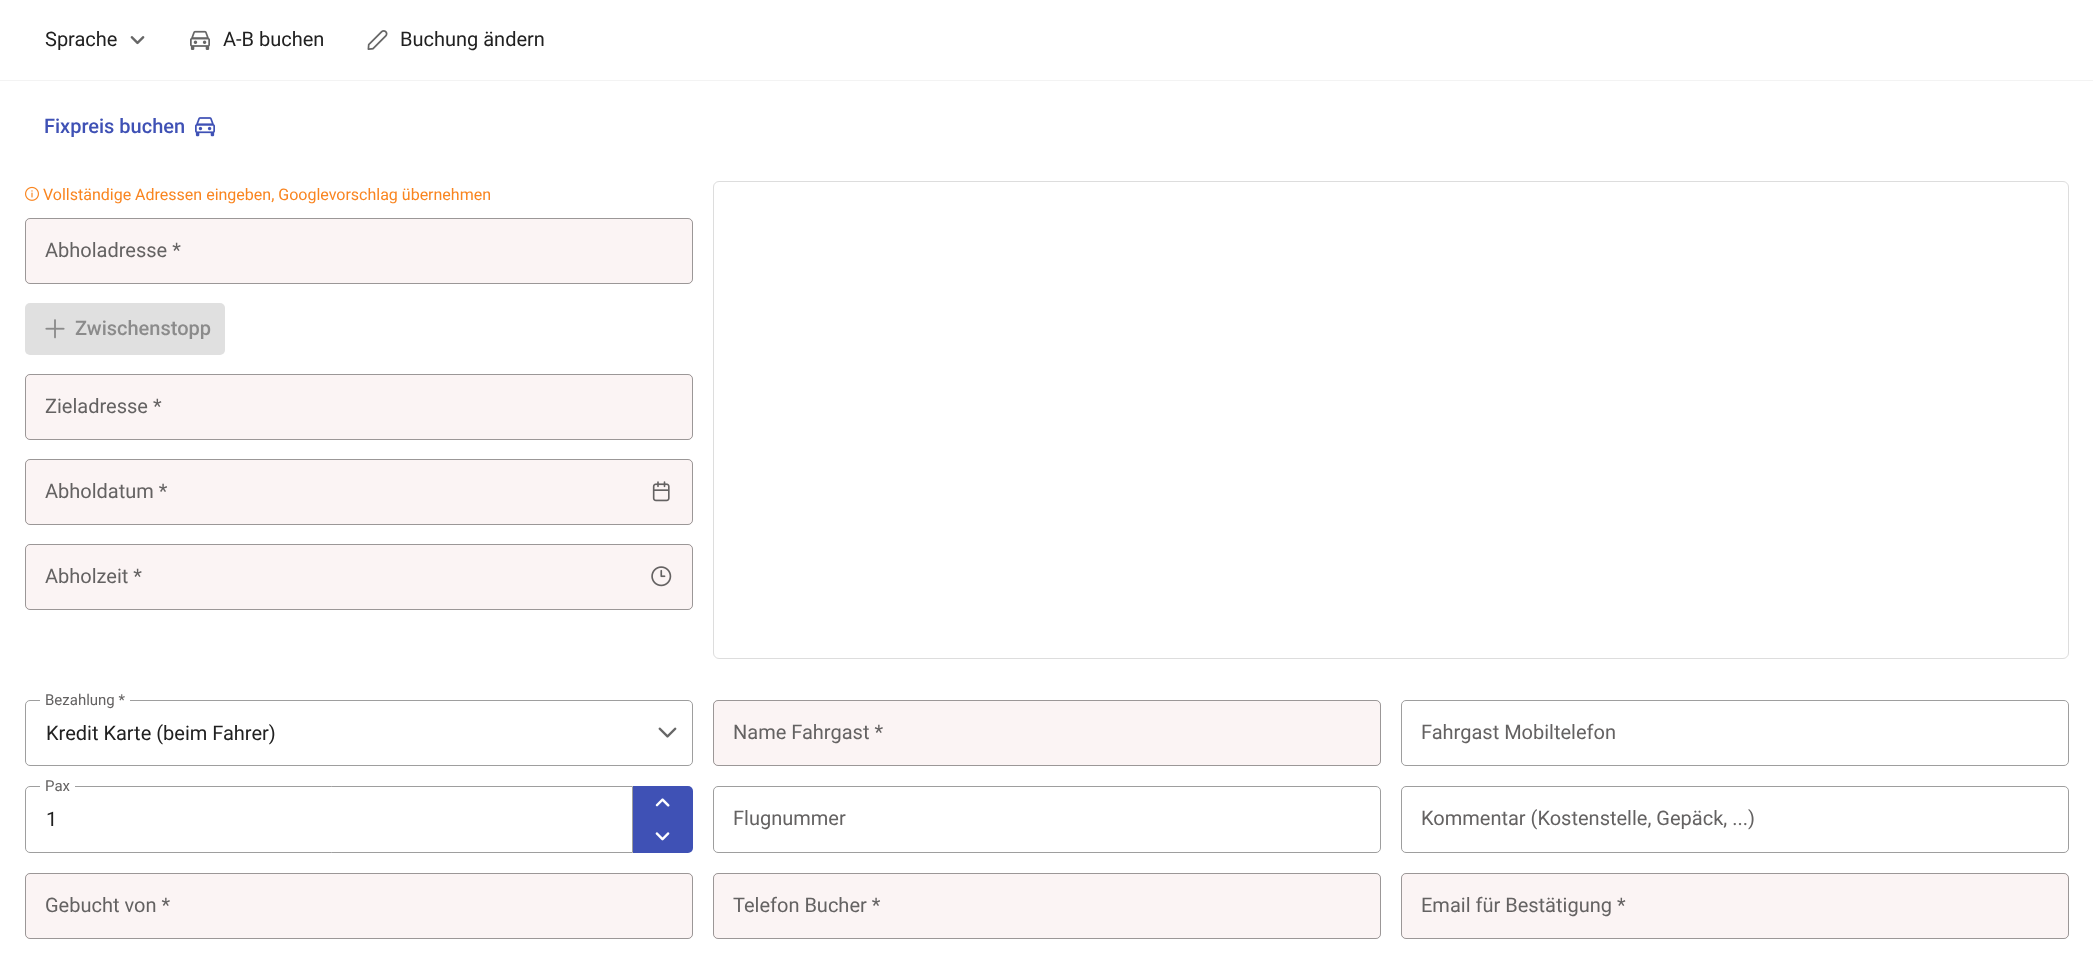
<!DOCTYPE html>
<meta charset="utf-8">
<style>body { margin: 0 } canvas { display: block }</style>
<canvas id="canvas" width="2093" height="956"></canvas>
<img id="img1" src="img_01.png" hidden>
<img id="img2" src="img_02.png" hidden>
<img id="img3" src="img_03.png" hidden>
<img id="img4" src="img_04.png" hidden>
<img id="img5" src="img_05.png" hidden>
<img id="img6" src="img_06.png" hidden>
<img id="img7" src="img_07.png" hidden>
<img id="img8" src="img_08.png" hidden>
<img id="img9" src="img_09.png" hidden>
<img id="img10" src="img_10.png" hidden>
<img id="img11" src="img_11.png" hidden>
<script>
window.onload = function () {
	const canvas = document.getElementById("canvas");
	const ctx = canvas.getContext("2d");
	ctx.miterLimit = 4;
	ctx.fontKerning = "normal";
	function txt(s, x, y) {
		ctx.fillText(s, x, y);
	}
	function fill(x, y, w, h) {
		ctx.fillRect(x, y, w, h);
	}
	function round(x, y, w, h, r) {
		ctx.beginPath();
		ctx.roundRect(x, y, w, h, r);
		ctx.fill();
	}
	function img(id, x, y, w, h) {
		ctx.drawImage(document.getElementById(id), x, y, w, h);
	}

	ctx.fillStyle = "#FFFFFF";
	fill(0, 0, 2093, 956);
	ctx.fillStyle = "#F3F3F3";
	fill(0, 80, 2093, 1);
	img("img1", 130, 36, 15, 9);
	img("img2", 190, 30, 20, 20);
	img("img3", 367, 30, 21, 20);
	img("img4", 195, 117, 20, 20);
	img("img5", 25, 186, 14, 15);
	ctx.fillStyle = "#FBF4F4";
	round(25, 218, 668, 66, 5);
	ctx.beginPath();
	ctx.roundRect(25.5, 218.5, 667, 65, 4.5);
	ctx.strokeStyle = "rgba(0, 0, 0, 0.38)";
	ctx.stroke();
	ctx.fillStyle = "#E0E0E0";
	round(25, 303, 200, 52, 5);
	img("img6", 45, 319, 20, 20);
	ctx.fillStyle = "#FBF4F4";
	round(25, 374, 668, 66, 5);
	ctx.beginPath();
	ctx.roundRect(25.5, 374.5, 667, 65, 4.5);
	ctx.stroke();
	round(25, 459, 668, 66, 5);
	ctx.beginPath();
	ctx.roundRect(25.5, 459.5, 667, 65, 4.5);
	ctx.stroke();
	img("img7", 652, 481, 18, 21);
	round(25, 544, 668, 66, 5);
	ctx.beginPath();
	ctx.roundRect(25.5, 544.5, 667, 65, 4.5);
	ctx.stroke();
	img("img8", 651, 566, 21, 21);
	ctx.beginPath();
	ctx.roundRect(713.5, 181.5, 1355, 477, 5.5);
	ctx.strokeStyle = "#DDDDDD";
	ctx.stroke();
	ctx.beginPath();
	ctx.roundRect(25.5, 700.5, 667, 65, 4.5);
	ctx.strokeStyle = "#9E9E9E";
	ctx.stroke();
	ctx.fillStyle = "#FFFFFF";
	fill(40, 700, 90, 1);
	img("img9", 658, 727, 19, 11);
	ctx.fillStyle = "#FBF4F4";
	round(713, 700, 668, 66, 5);
	ctx.beginPath();
	ctx.roundRect(713.5, 700.5, 667, 65, 4.5);
	ctx.strokeStyle = "rgba(0, 0, 0, 0.38)";
	ctx.stroke();
	ctx.beginPath();
	ctx.roundRect(1401.5, 700.5, 667, 65, 4.5);
	ctx.strokeStyle = "#9E9E9E";
	ctx.stroke();
	ctx.beginPath();
	ctx.roundRect(25.5, 786.5, 607, 66, [4.5, 0, 0, 4.5]);
	ctx.stroke();
	ctx.fillStyle = "#FFFFFF";
	fill(40, 786, 35, 1);
	ctx.fillStyle = "#3F51B5";
	ctx.beginPath();
	ctx.roundRect(633, 786, 60, 33, [0, 5, 0, 0]);
	ctx.fill();
	img("img10", 655, 798, 15, 9);
	ctx.beginPath();
	ctx.roundRect(633, 819, 60, 34, [0, 0, 5, 0]);
	ctx.fill();
	img("img11", 655, 832, 15, 9);
	ctx.beginPath();
	ctx.roundRect(713.5, 786.5, 667, 66, 4.5);
	ctx.stroke();
	ctx.beginPath();
	ctx.roundRect(1401.5, 786.5, 667, 66, 4.5);
	ctx.stroke();
	ctx.fillStyle = "#FBF4F4";
	round(25, 873, 668, 66, 5);
	ctx.beginPath();
	ctx.roundRect(25.5, 873.5, 667, 65, 4.5);
	ctx.strokeStyle = "rgba(0, 0, 0, 0.38)";
	ctx.stroke();
	round(713, 873, 668, 66, 5);
	ctx.beginPath();
	ctx.roundRect(713.5, 873.5, 667, 65, 4.5);
	ctx.stroke();
	round(1401, 873, 668, 66, 5);
	ctx.beginPath();
	ctx.roundRect(1401.5, 873.5, 667, 65, 4.5);
	ctx.stroke();
	ctx.font = "20px Roboto";
	ctx.fillStyle = "#212121";
	txt("Sprache", 45, 46);
	txt("A-B buchen", 223, 46);
	txt("Buchung ändern", 400, 46);
	ctx.font = "500 20px Roboto";
	ctx.fillStyle = "#3F51B5";
	txt("Fixpreis buchen", 44, 133);
	ctx.font = "16px Roboto";
	ctx.fillStyle = "#F98520";
	txt("Vollständige Adressen eingeben, Googlevorschlag übernehmen", 43, 200);
	ctx.font = "20px Roboto";
	ctx.fillStyle = "#646262";
	txt("Abholadresse *", 45, 257);
	ctx.font = "500 20px Roboto";
	ctx.fillStyle = "#8B8B8B";
	txt("Zwischenstopp", 75, 335);
	ctx.font = "20px Roboto";
	ctx.fillStyle = "#646262";
	txt("Zieladresse *", 45, 413);
	txt("Abholdatum *", 45, 498);
	txt("Abholzeit *", 45, 583);
	ctx.font = "15px Roboto";
	txt("Bezahlung *", 45, 705);
	ctx.font = "20px Roboto";
	ctx.fillStyle = "#212121";
	txt("Kredit Karte (beim Fahrer)", 46, 740);
	ctx.fillStyle = "#646262";
	txt("Name Fahrgast *", 733, 739);
	txt("Fahrgast Mobiltelefon", 1421, 739);
	ctx.font = "15px Roboto";
	txt("Pax", 45, 791);
	ctx.font = "20px Roboto";
	ctx.fillStyle = "#212121";
	txt("1", 46, 826);
	ctx.fillStyle = "#646262";
	txt("Flugnummer", 733, 825);
	txt("Kommentar (Kostenstelle, Gepäck, ...)", 1421, 825);
	txt("Gebucht von *", 45, 912);
	txt("Telefon Bucher *", 733, 912);
	txt("Email für Bestätigung *", 1421, 912);
};
</script>
